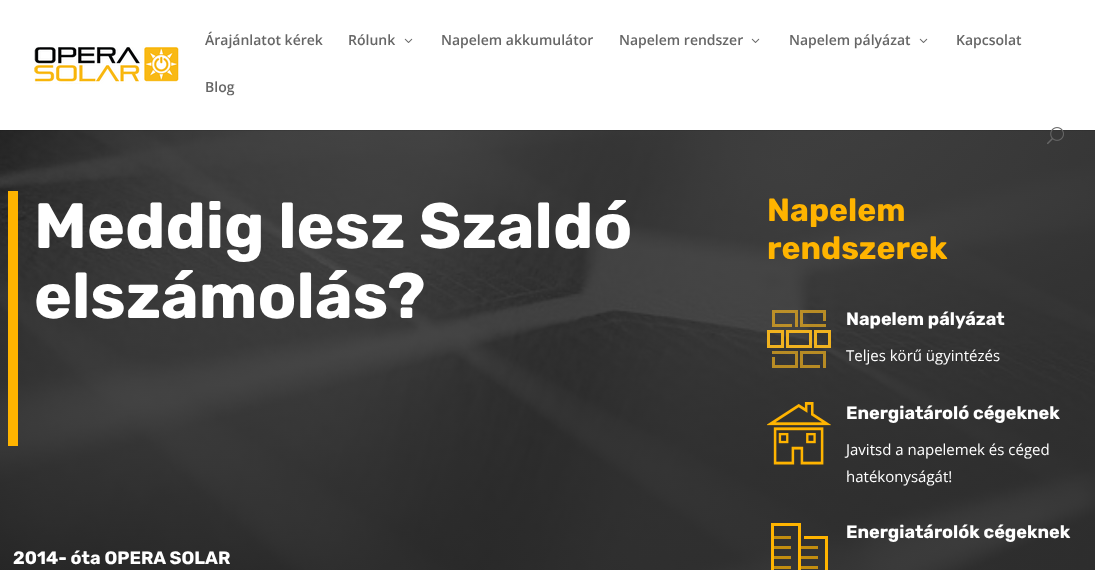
<!DOCTYPE html>
<meta charset="utf-8">
<style>body { margin: 0 } canvas { display: block }</style>
<canvas id="canvas" width="1095" height="570"></canvas>
<img id="img1" src="img_04.png" hidden>
<img id="img2" src="img_01.png" hidden>
<img id="img3" src="img_02.png" hidden>
<img id="img4" src="img_03.png" hidden>
<img id="img5" src="img_05.png" hidden>
<img id="img6" src="img_06.png" hidden>
<img id="img7" src="img_07.png" hidden>
<script>
window.onload = function () {
	const canvas = document.getElementById("canvas");
	const ctx = canvas.getContext("2d");
	ctx.miterLimit = 4;
	ctx.fontKerning = "normal";
	function txt(s, x, y) {
		ctx.fillText(s, x, y);
	}
	function fill(x, y, w, h) {
		ctx.fillRect(x, y, w, h);
	}
	function img(id, x, y, w, h) {
		ctx.drawImage(document.getElementById(id), x, y, w, h);
	}

	ctx.fillStyle = "#FFFFFF";
	fill(0, 0, 1095, 570);
	img("img1", 0, 130, 1095, 440);
	ctx.fillStyle = "rgba(0, 0, 0, 0.1)";
	fill(0, 130, 1095, 1);
	img("img2", 34, 47, 145, 37);
	img("img3", 404, 38, 9, 5);
	img("img3", 751, 38, 9, 5);
	img("img3", 919, 38, 9, 5);
	img("img4", 1047, 127, 17, 17);
	ctx.fillStyle = "#FFB400";
	fill(8, 191, 10, 255);
	img("img5", 767, 310, 64, 58);
	img("img6", 767, 402, 64, 63);
	img("img7", 771, 523, 57, 47);
	ctx.font = "600 14px Open Sans";
	ctx.fillStyle = "#666666";
	txt("Árajánlatot kérek", 205, 45);
	txt("Rólunk", 348, 45);
	txt("Napelem akkumulátor", 441, 45);
	txt("Napelem rendszer", 619, 45);
	txt("Napelem pályázat", 789, 45);
	txt("Kapcsolat", 956, 45);
	txt("Blog", 205, 92);
	ctx.font = "300 64px Rubik";
	ctx.fillStyle = "#FFFFFF";
	txt("Meddig lesz Szaldó", 34, 248);
	txt("elszámolás?", 34, 318);
	ctx.font = "300 18px Rubik";
	txt("2014- óta OPERA SOLAR", 13, 564);
	ctx.font = "300 32px Rubik";
	ctx.fillStyle = "#FFB400";
	txt("Napelem", 767, 221);
	txt("rendszerek", 767, 259);
	ctx.font = "300 18px Rubik";
	ctx.fillStyle = "#FFFFFF";
	txt("Napelem pályázat", 846, 325);
	ctx.font = "15px Open Sans";
	txt("Teljes körű ügyintézés", 846, 361);
	ctx.font = "300 18px Rubik";
	txt("Energiatároló cégeknek", 846, 419);
	ctx.font = "15px Open Sans";
	txt("Javitsd a napelemek és céged", 846, 455);
	txt("hatékonyságát!", 846, 482);
	ctx.font = "300 18px Rubik";
	txt("Energiatárolók cégeknek", 846, 538);
};
</script>
